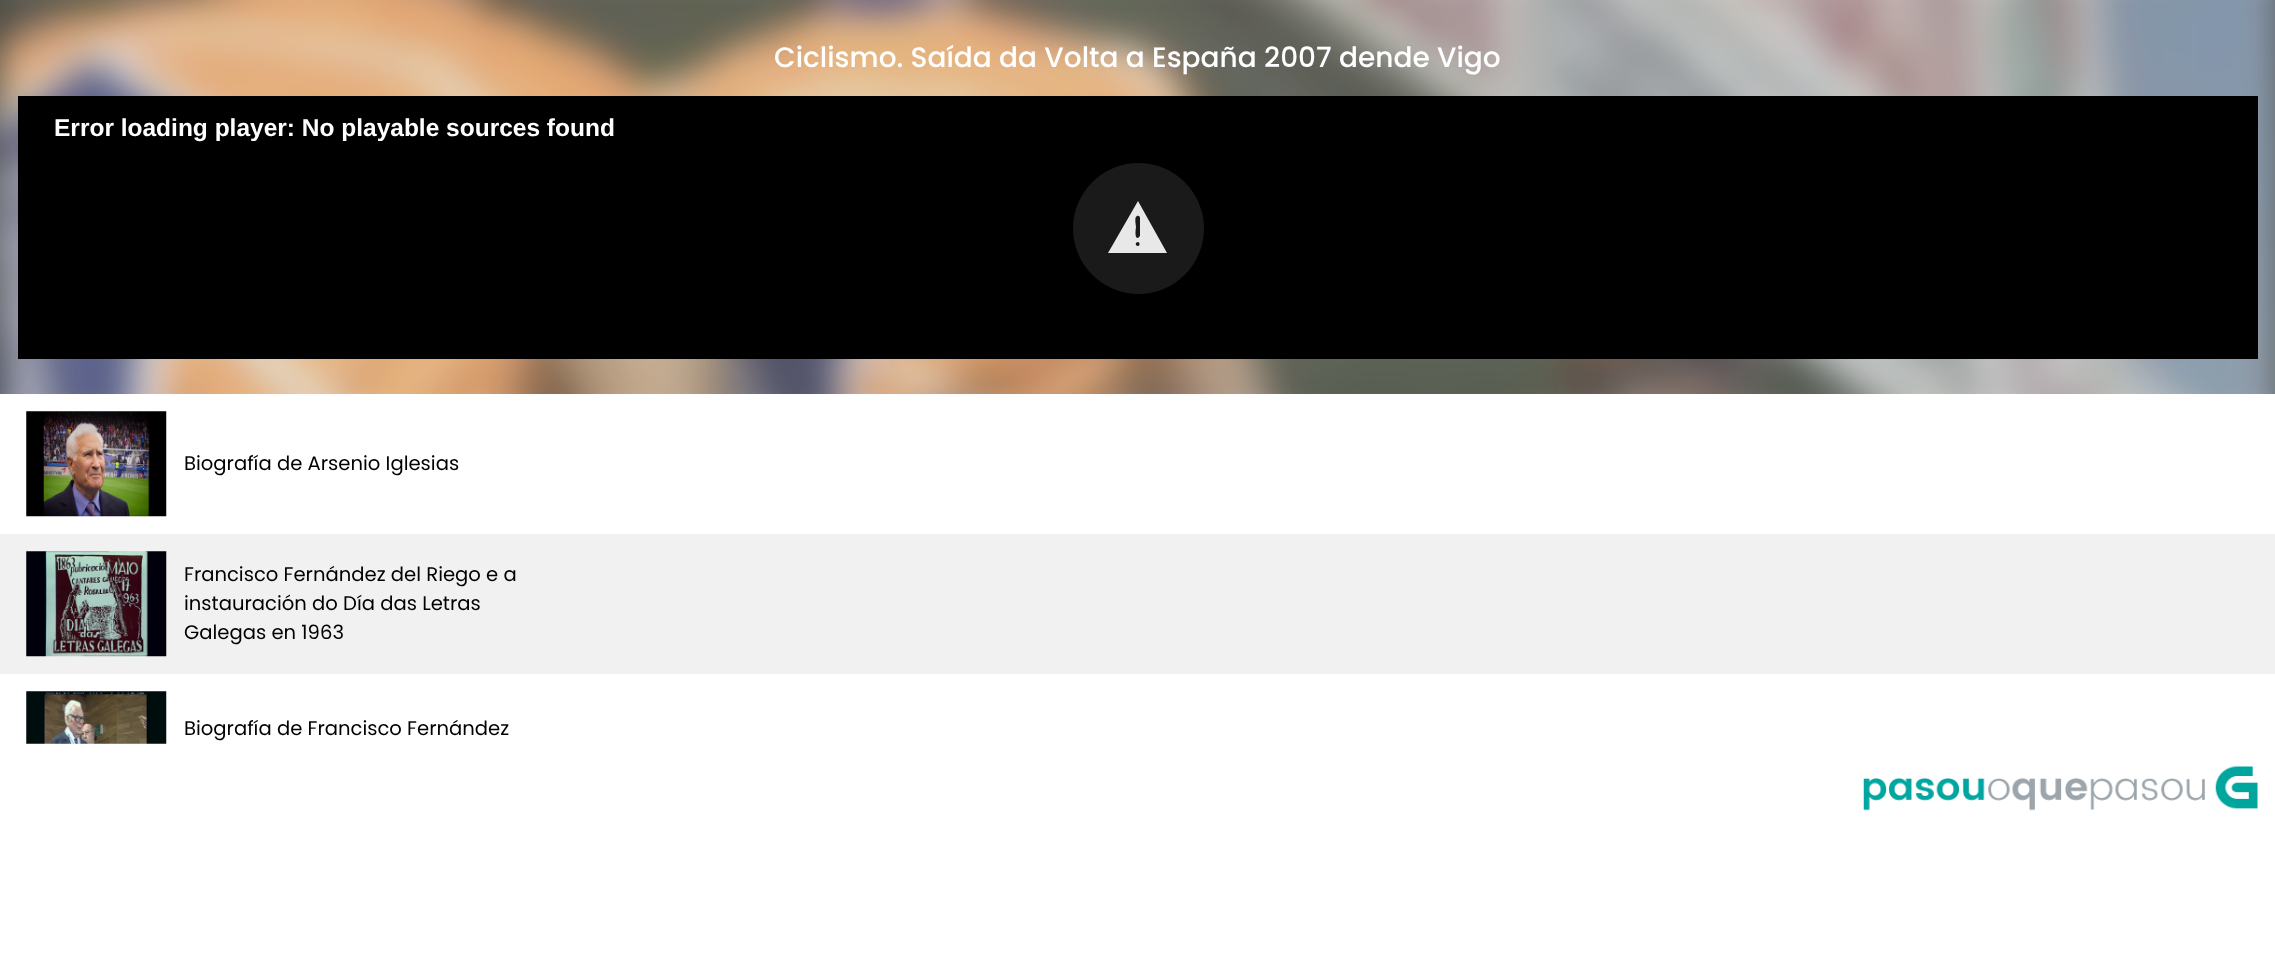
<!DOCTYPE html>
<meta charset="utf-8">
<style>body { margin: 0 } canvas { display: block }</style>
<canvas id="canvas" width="2275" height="960"></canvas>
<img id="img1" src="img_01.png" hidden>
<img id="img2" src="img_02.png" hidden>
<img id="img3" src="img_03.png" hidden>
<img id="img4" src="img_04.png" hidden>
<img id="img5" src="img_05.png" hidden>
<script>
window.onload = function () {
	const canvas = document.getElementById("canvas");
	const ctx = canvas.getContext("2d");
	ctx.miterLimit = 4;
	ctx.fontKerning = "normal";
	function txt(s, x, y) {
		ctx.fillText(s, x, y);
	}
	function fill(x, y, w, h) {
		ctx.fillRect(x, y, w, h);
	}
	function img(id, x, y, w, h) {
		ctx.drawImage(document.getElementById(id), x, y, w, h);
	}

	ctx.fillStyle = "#FFFFFF";
	fill(0, 0, 2275, 960);
	img("img1", 0, 0, 2275, 394);
	ctx.fillStyle = "rgba(0, 0, 0, 0.1)";
	fill(0, 0, 2275, 394);
	ctx.fillStyle = "#000000";
	fill(18, 96, 2240, 263);
	ctx.fillStyle = "#1A1A1A";
	ctx.beginPath();
	ctx.arc(1138.5, 228.5, 65.5, 0, Math.PI * 2);
	ctx.fill();
	ctx.fillStyle = "#E8E8E8";
	ctx.beginPath();
	ctx.moveTo(1108, 253);
	ctx.lineTo(1138, 201);
	ctx.lineTo(1167, 253);
	ctx.closePath();
	ctx.moveTo(1138, 246);
	ctx.bezierCurveTo(1140, 246, 1140, 242, 1138, 242);
	ctx.bezierCurveTo(1135, 242, 1135, 246, 1138, 246);
	ctx.closePath();
	ctx.moveTo(1140, 218);
	ctx.bezierCurveTo(1140, 217, 1139, 215, 1137, 216);
	ctx.bezierCurveTo(1134, 217, 1136, 225, 1136, 227);
	ctx.bezierCurveTo(1136, 227, 1134, 239, 1138, 238);
	ctx.lineTo(1140, 236);
	ctx.closePath();
	ctx.fill();
	img("img2", 26, 411, 141, 106);
	ctx.fillStyle = "#F1F1F1";
	fill(0, 534, 2275, 140);
	img("img3", 26, 551, 141, 106);
	img("img4", 26, 691, 141, 53);
	img("img5", 1863, 766, 395, 45);
	ctx.font = "500 28px Poppins";
	ctx.fillStyle = "#FFFFFF";
	txt("Ciclismo. Saída da Volta a España 2007 dende Vigo", 774, 67);
	ctx.font = "bold 24.5px Liberation Sans";
	txt("Error loading player: No playable sources found", 54, 136);
	ctx.font = "19.6px Poppins";
	ctx.fillStyle = "#000000";
	txt("Biografía de Arsenio Iglesias", 184, 470);
	txt("Francisco Fernández del Riego e a", 184, 581);
	txt("instauración do Día das Letras", 184, 610);
	txt("Galegas en 1963", 184, 639);
	txt("Biografía de Francisco Fernández", 184, 735);
};
</script>
